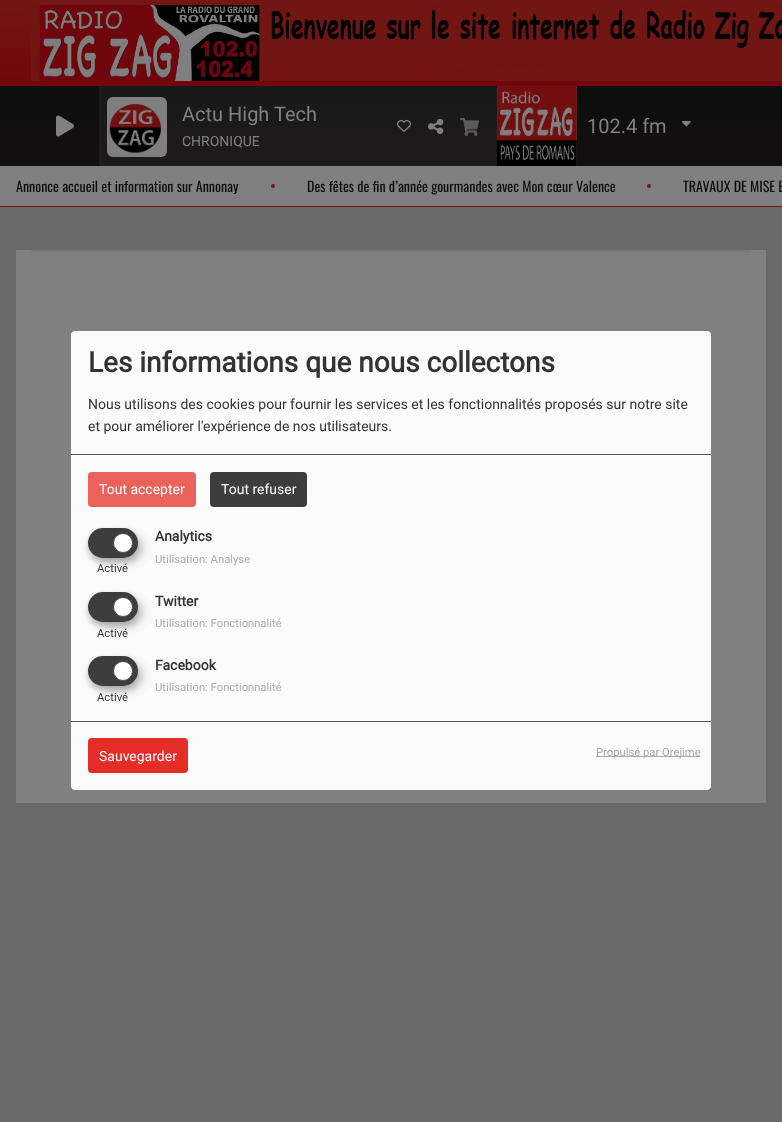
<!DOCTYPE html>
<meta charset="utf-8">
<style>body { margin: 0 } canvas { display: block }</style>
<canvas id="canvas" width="782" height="1122"></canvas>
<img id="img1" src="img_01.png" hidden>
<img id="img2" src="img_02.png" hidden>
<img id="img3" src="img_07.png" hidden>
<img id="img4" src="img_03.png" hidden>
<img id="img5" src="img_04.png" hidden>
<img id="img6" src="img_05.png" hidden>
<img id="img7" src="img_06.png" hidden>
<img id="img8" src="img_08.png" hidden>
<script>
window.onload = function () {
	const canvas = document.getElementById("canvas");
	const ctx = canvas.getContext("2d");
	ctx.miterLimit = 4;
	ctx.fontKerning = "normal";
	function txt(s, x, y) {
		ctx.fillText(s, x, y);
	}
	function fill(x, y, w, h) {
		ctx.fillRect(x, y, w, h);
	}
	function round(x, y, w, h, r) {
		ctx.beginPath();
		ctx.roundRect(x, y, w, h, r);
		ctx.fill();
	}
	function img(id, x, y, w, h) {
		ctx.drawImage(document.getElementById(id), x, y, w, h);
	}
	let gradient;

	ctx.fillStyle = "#696969";
	fill(0, 0, 782, 1122);
	gradient = ctx.createLinearGradient(391, 0, 391, 86);
	gradient.addColorStop(0, "#731714");
	gradient.addColorStop(1, "#71070C");
	ctx.fillStyle = gradient;
	fill(0, 0, 782, 86);
	img("img1", 31, 5, 751, 76);
	gradient = ctx.createLinearGradient(391, 86, 391, 166);
	gradient.addColorStop(0, "#0E0E0E");
	gradient.addColorStop(1, "#120F0F");
	ctx.fillStyle = gradient;
	fill(0, 86, 782, 80);
	img("img2", 56, 115, 18, 22);
	img("img3", 496, 86, 81, 80);
	ctx.fillStyle = "rgba(128, 128, 128, 0.1)";
	fill(99, 86, 398, 80);
	img("img4", 107, 97, 60, 60);
	img("img5", 397, 119, 14, 13);
	img("img6", 428, 118, 16, 17);
	img("img7", 460, 118, 19, 18);
	img("img8", 682, 121, 9, 6);
	ctx.fillStyle = "#808080";
	fill(0, 166, 782, 40);
	ctx.fillStyle = "#731613";
	fill(0, 206, 782, 1);
	ctx.beginPath();
	ctx.arc(273, 186, 2, 0, Math.PI * 2);
	ctx.fill();
	ctx.beginPath();
	ctx.arc(649, 186, 2, 0, Math.PI * 2);
	ctx.fill();
	ctx.fillStyle = "#808080";
	fill(16, 250, 750, 553);
	ctx.fillStyle = "#777777";
	fill(31, 250, 720, 2);
	ctx.save();
	ctx.beginPath();
	ctx.rect(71, 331, 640, 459);
	ctx.clip();
	ctx.fillStyle = "rgba(0, 0, 0, 0.19)";
	ctx.filter = "blur(5px)";
	ctx.beginPath();
	ctx.roundRect(76, 336, 640, 459, 4);
	ctx.fill();
	ctx.filter = "none";
	ctx.fillStyle = "rgba(0, 0, 0, 0.2)";
	ctx.filter = "blur(3px)";
	ctx.beginPath();
	ctx.roundRect(71, 335, 640, 459, 4);
	ctx.fill();
	ctx.filter = "none";
	ctx.restore();
	ctx.fillStyle = "#FBFBFB";
	round(71, 331, 640, 459, 4);
	ctx.fillStyle = "#555555";
	fill(71, 454, 640, 1);
	ctx.fillStyle = "#EB615C";
	round(88, 472, 108, 35, 4);
	ctx.fillStyle = "#3E3D3D";
	round(210, 472, 97, 35, 4);
	ctx.fillStyle = "rgba(0, 0, 0, 0.19)";
	ctx.filter = "blur(5px)";
	ctx.beginPath();
	ctx.roundRect(93, 533, 50, 30, 15);
	ctx.fill();
	ctx.filter = "none";
	ctx.fillStyle = "rgba(0, 0, 0, 0.2)";
	ctx.filter = "blur(3px)";
	ctx.beginPath();
	ctx.roundRect(88, 532, 50, 30, 15);
	ctx.fill();
	ctx.filter = "none";
	ctx.fillStyle = "#3E3D3D";
	round(88, 528, 50, 30, 15);
	ctx.fillStyle = "#FFFFFF";
	ctx.beginPath();
	ctx.arc(123, 543, 9.5, 0, Math.PI * 2);
	ctx.fill();
	ctx.strokeStyle = "#555555";
	ctx.stroke();
	ctx.fillStyle = "rgba(0, 0, 0, 0.19)";
	ctx.filter = "blur(5px)";
	ctx.beginPath();
	ctx.roundRect(93, 597, 50, 30, 15);
	ctx.fill();
	ctx.filter = "none";
	ctx.fillStyle = "rgba(0, 0, 0, 0.2)";
	ctx.filter = "blur(3px)";
	ctx.beginPath();
	ctx.roundRect(88, 596, 50, 30, 15);
	ctx.fill();
	ctx.filter = "none";
	ctx.fillStyle = "#3E3D3D";
	round(88, 592, 50, 30, 15);
	ctx.fillStyle = "#FFFFFF";
	ctx.beginPath();
	ctx.arc(123, 607, 9.5, 0, Math.PI * 2);
	ctx.fill();
	ctx.stroke();
	ctx.fillStyle = "rgba(0, 0, 0, 0.19)";
	ctx.filter = "blur(5px)";
	ctx.beginPath();
	ctx.roundRect(93, 661, 50, 30, 15);
	ctx.fill();
	ctx.filter = "none";
	ctx.fillStyle = "rgba(0, 0, 0, 0.2)";
	ctx.filter = "blur(3px)";
	ctx.beginPath();
	ctx.roundRect(88, 660, 50, 30, 15);
	ctx.fill();
	ctx.filter = "none";
	ctx.fillStyle = "#3E3D3D";
	round(88, 656, 50, 30, 15);
	ctx.fillStyle = "#FFFFFF";
	ctx.beginPath();
	ctx.arc(123, 671, 9.5, 0, Math.PI * 2);
	ctx.fill();
	ctx.stroke();
	ctx.fillStyle = "#555555";
	fill(71, 721, 640, 1);
	ctx.fillStyle = "#E52D27";
	round(88, 738, 100, 35, 4);
	ctx.fillStyle = "#AAAAAA";
	fill(596, 756, 104, 1);
	ctx.font = "20px Roboto";
	ctx.fillStyle = "#808080";
	txt("Actu High Tech", 182, 121);
	ctx.font = "14px Roboto";
	txt("CHRONIQUE", 182, 146);
	ctx.font = "20px Roboto";
	txt("102.4 fm", 587, 133);
	ctx.font = "14px Oswald";
	ctx.fillStyle = "#0C0F12";
	txt("Annonce accueil et information sur Annonay", 16, 192);
	txt("Des fêtes de fin d’année gourmandes avec Mon cœur Valence", 307, 192);
	txt("TRAVAUX DE MISE E", 683, 192);
	ctx.font = "bold 28px Roboto";
	ctx.fillStyle = "#333333";
	txt("Les informations que nous collectons", 88, 372);
	ctx.font = "14px Roboto";
	txt("Nous utilisons des cookies pour fournir les services et les fonctionnalités proposés sur notre site", 88, 409);
	txt("et pour améliorer l'expérience de nos utilisateurs.", 88, 431);
	ctx.fillStyle = "#FFFFFF";
	txt("Tout accepter", 99, 494);
	txt("Tout refuser", 221, 494);
	ctx.font = "bold 14px Roboto";
	ctx.fillStyle = "#333333";
	txt("Analytics", 155, 541);
	ctx.font = "11.25px Roboto";
	txt("Activé", 97, 572);
	ctx.fillStyle = "#AAAAAA";
	txt("Utilisation: Analyse", 155, 563);
	ctx.font = "bold 14px Roboto";
	ctx.fillStyle = "#333333";
	txt("Twitter", 155, 606);
	ctx.font = "11.25px Roboto";
	txt("Activé", 97, 637);
	ctx.fillStyle = "#AAAAAA";
	txt("Utilisation: Fonctionnalité", 155, 627);
	ctx.font = "bold 14px Roboto";
	ctx.fillStyle = "#333333";
	txt("Facebook", 155, 670);
	ctx.font = "11.25px Roboto";
	txt("Activé", 97, 701);
	ctx.fillStyle = "#AAAAAA";
	txt("Utilisation: Fonctionnalité", 155, 691);
	ctx.font = "14px Roboto";
	ctx.fillStyle = "#FFFFFF";
	txt("Sauvegarder", 99, 761);
	ctx.font = "11.25px Roboto";
	ctx.fillStyle = "#AAAAAA";
	txt("Propulsé par Orejime", 596, 756);
};
</script>
